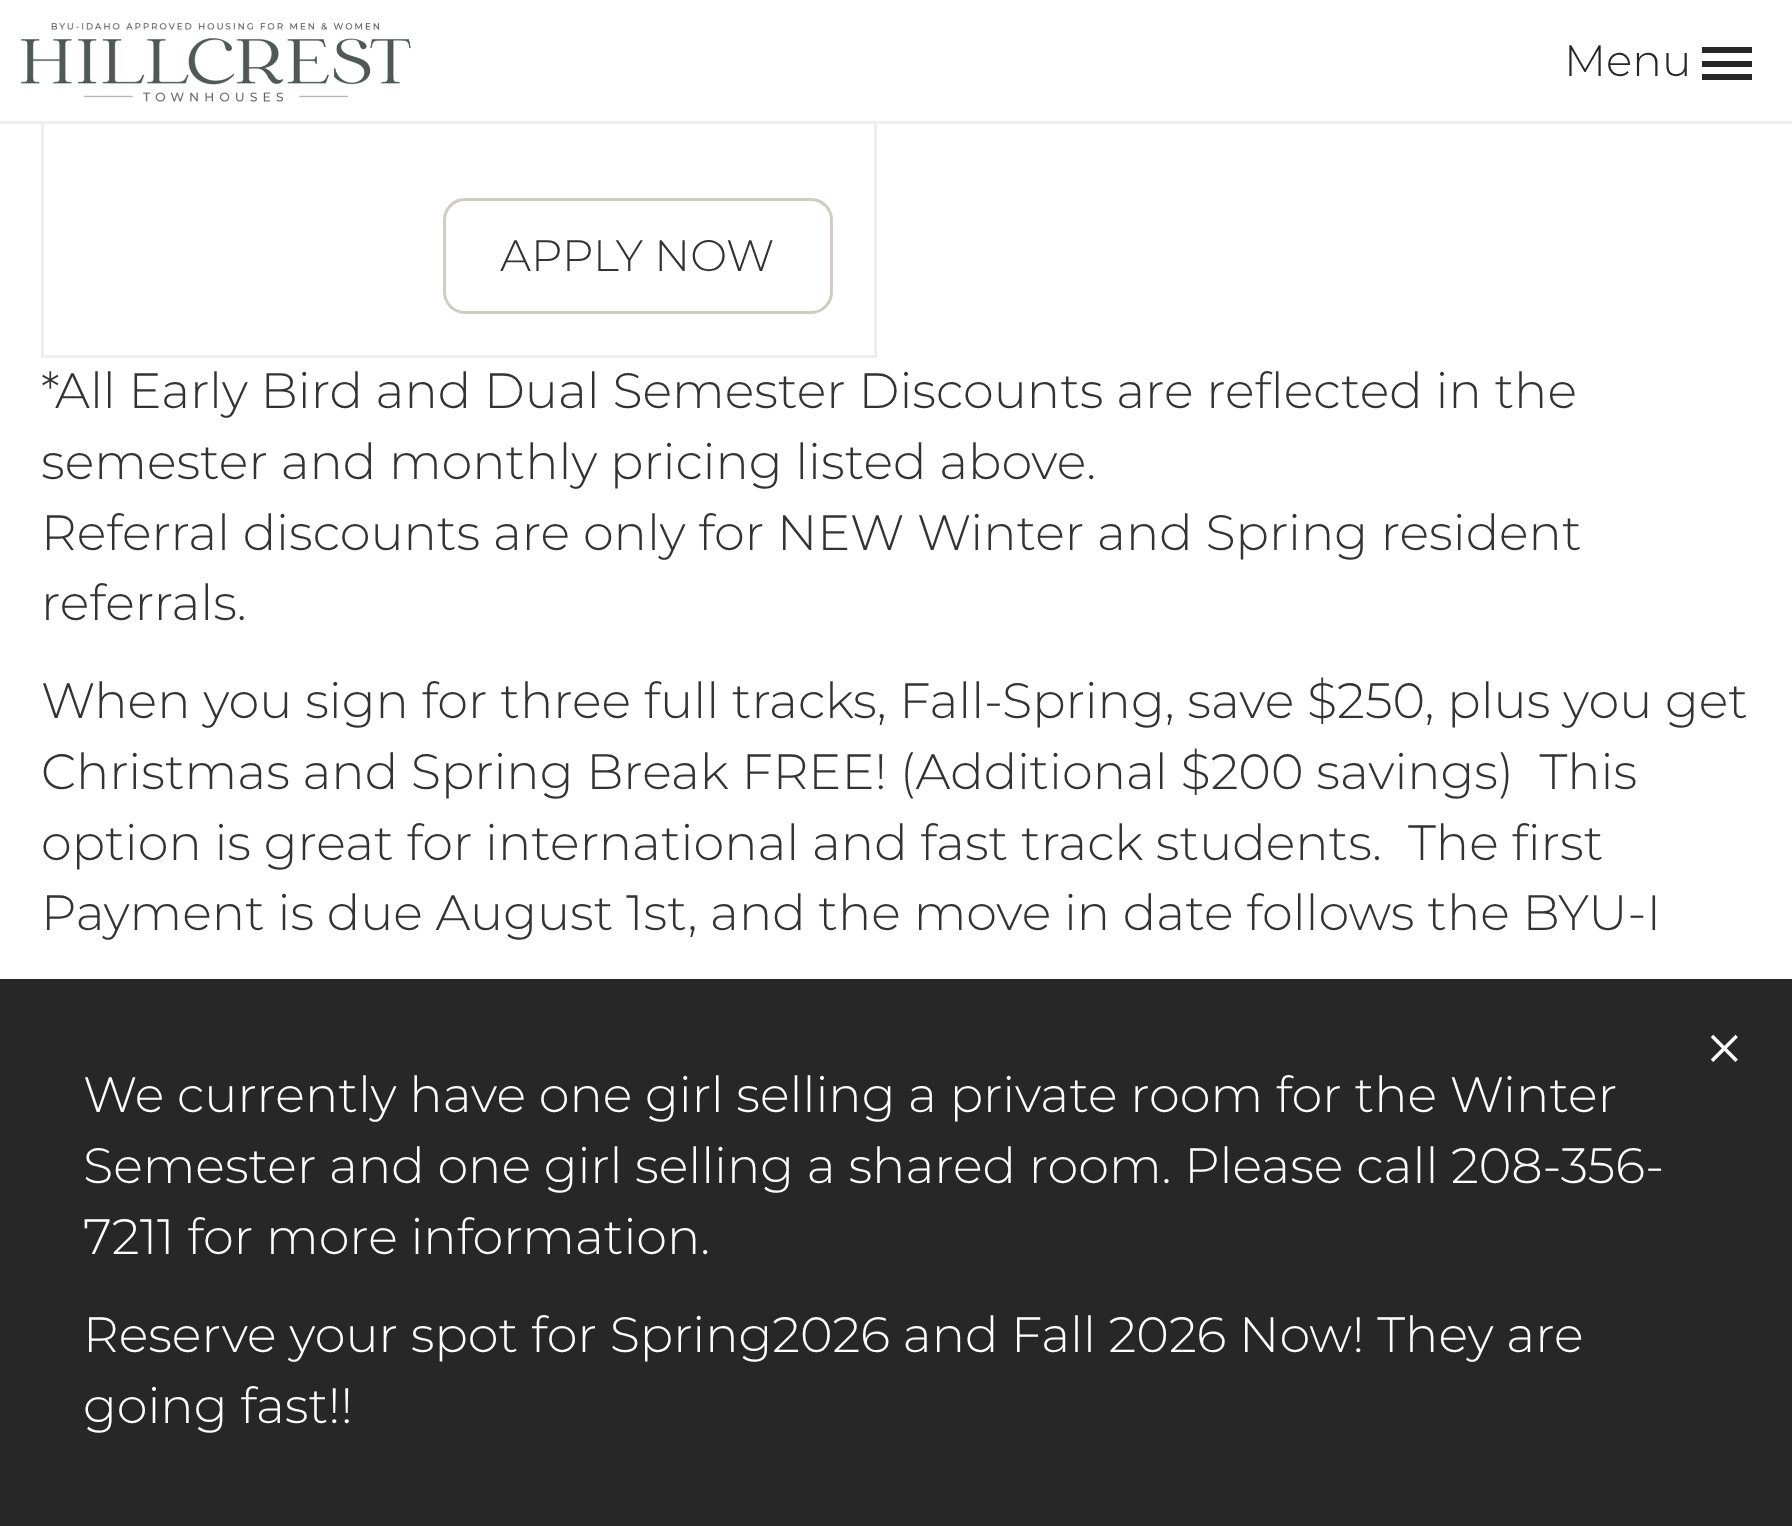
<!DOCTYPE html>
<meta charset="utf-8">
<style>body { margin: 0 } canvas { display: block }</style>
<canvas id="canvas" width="1792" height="1526"></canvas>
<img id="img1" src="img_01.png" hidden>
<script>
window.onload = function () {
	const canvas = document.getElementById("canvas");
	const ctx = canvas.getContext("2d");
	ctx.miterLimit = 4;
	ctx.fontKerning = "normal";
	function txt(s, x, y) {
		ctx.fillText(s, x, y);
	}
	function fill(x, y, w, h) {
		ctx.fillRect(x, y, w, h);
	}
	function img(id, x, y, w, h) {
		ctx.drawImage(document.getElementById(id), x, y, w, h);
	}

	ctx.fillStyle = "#FFFFFF";
	fill(0, 0, 1792, 1526);
	ctx.strokeStyle = "#EEEEEE";
	ctx.lineWidth = 3;
	ctx.strokeRect(42.5, -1.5, 833, 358);
	fill(41, 0, 836, 121);
	ctx.fillStyle = "#EEEEEE";
	fill(0, 121, 1792, 3);
	img("img1", 20, 22, 391, 80);
	ctx.fillStyle = "#272727";
	fill(1702, 61, 50, 6);
	fill(1702, 47, 50, 6);
	fill(1702, 74, 50, 6);
	ctx.beginPath();
	ctx.roundRect(444.5, 199.5, 387, 113, 20.5);
	ctx.strokeStyle = "#D2CBC1";
	ctx.stroke();
	fill(0, 979, 1792, 547);
	ctx.font = "100 44px Montserrat";
	txt("Menu", 1564, 76);
	ctx.fillStyle = "#333333";
	txt("APPLY NOW", 500, 271);
	ctx.font = "100 49.5px Montserrat";
	txt("*All Early Bird and Dual Semester Discounts are reflected in the", 41, 408);
	txt("semester and monthly pricing listed above.", 41, 479);
	txt("Referral discounts are only for NEW Winter and Spring resident", 41, 550);
	txt("referrals.", 41, 620);
	txt("When you sign for three full tracks, Fall-Spring, save $250, plus you get", 41, 718);
	txt("Christmas and Spring Break FREE! (Additional $200 savings)  This", 41, 789);
	txt("option is great for international and fast track students.", 41, 860);
	txt("The first", 1408, 860);
	txt("Payment is due August 1st, and the move in date follows the BYU-I", 41, 930);
	ctx.font = "100 82px Montserrat";
	ctx.fillStyle = "#FFFFFF";
	txt("×", 1701, 1077);
	ctx.font = "100 49.5px Montserrat";
	txt("We currently have one girl selling a private room for the Winter", 83, 1112);
	txt("Semester and one girl selling a shared room. Please call 208-356-", 83, 1183);
	txt("7211 for more information.", 83, 1254);
	txt("Reserve your spot for Spring2026 and Fall 2026 Now! They are", 83, 1352);
	txt("going fast!!", 83, 1423);
};
</script>
